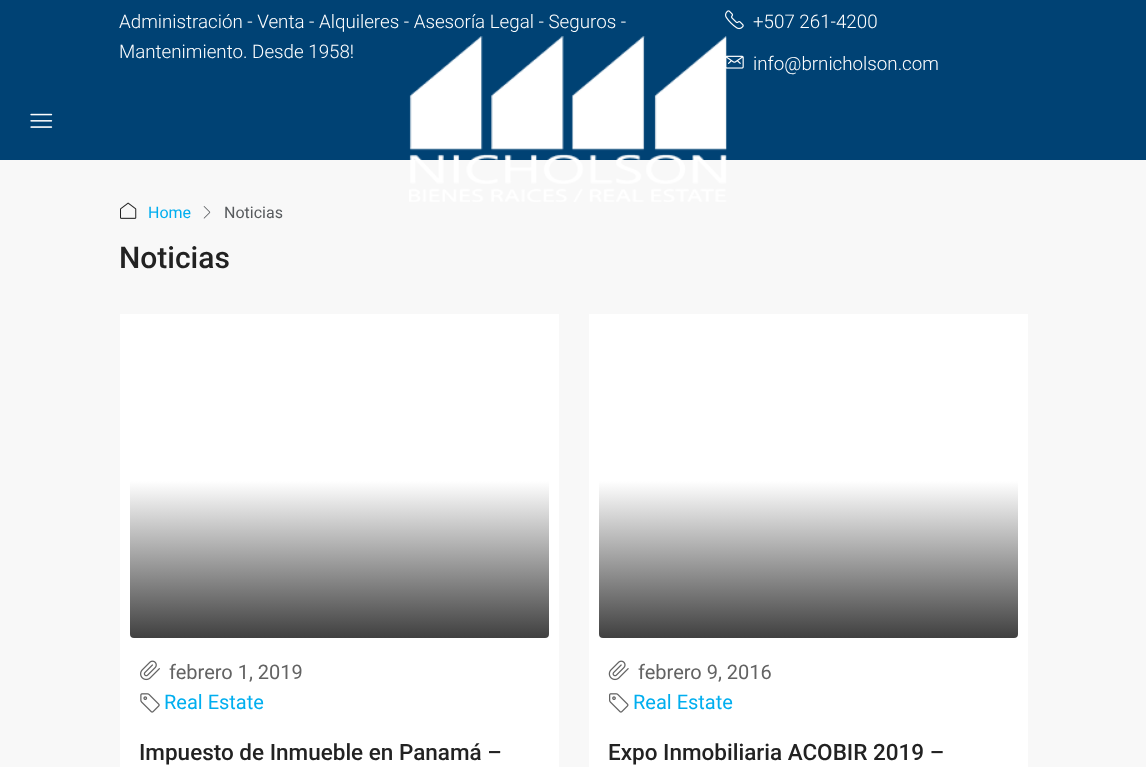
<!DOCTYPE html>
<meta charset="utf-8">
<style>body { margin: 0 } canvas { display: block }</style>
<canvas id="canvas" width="1146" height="767"></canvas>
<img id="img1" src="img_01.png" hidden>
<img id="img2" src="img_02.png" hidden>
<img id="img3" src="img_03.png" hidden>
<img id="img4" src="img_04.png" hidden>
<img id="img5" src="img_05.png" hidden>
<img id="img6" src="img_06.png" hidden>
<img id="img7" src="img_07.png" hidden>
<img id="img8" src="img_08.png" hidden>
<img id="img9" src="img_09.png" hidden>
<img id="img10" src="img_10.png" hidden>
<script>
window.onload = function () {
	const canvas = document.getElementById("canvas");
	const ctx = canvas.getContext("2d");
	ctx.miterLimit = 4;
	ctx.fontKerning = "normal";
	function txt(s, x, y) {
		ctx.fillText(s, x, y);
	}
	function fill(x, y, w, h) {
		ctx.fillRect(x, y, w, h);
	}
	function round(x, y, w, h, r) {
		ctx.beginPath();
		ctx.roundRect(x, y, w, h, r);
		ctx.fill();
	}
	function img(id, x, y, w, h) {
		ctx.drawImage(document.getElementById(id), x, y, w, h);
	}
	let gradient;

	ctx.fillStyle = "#F8F8F8";
	fill(0, 0, 1146, 767);
	ctx.fillStyle = "#004274";
	fill(0, 0, 1146, 160);
	img("img1", 725, 10, 19, 20);
	img("img2", 725, 55, 19, 14);
	img("img3", 30, 113, 23, 15);
	img("img4", 409, 36, 318, 166);
	img("img5", 120, 202, 17, 17);
	img("img6", 203, 206, 8, 13);
	ctx.fillStyle = "#FFFFFF";
	fill(120, 314, 439, 453);
	gradient = ctx.createLinearGradient(339, 324, 339, 638);
	gradient.addColorStop(0, "#FFFFFF");
	gradient.addColorStop(0.5, "#FFFFFF");
	gradient.addColorStop(1, "#404040");
	ctx.fillStyle = gradient;
	round(130, 324, 419, 314, 4);
	img("img7", 140, 660, 20, 21);
	img("img8", 140, 693, 20, 20);
	ctx.fillStyle = "#FFFFFF";
	fill(589, 314, 439, 453);
	gradient = ctx.createLinearGradient(808, 324, 808, 638);
	gradient.addColorStop(0, "#FFFFFF");
	gradient.addColorStop(0.5, "#FFFFFF");
	gradient.addColorStop(1, "#404040");
	ctx.fillStyle = gradient;
	round(599, 324, 419, 314, 4);
	img("img9", 608, 660, 21, 21);
	img("img10", 609, 693, 20, 20);
	ctx.font = "300 18.75px Roboto";
	ctx.fillStyle = "#FFFFFF";
	txt("Administración - Venta - Alquileres - Asesoría Legal - Seguros -", 119, 28);
	txt("Mantenimiento. Desde 1958!", 119, 58);
	txt("+507 261-4200", 753, 28);
	txt("info@brnicholson.com", 753, 70);
	ctx.font = "16px Roboto";
	ctx.fillStyle = "#00AEEF";
	txt("Home", 148, 218);
	ctx.fillStyle = "#575A5D";
	txt("Noticias", 224, 218);
	ctx.font = "500 30px Roboto";
	ctx.fillStyle = "#222222";
	txt("Noticias", 119, 268);
	ctx.font = "20px Roboto";
	ctx.fillStyle = "#636363";
	txt("febrero 1, 2019", 169, 679);
	ctx.fillStyle = "#00AEEF";
	txt("Real Estate", 164, 709);
	ctx.font = "500 22.5px Roboto";
	ctx.fillStyle = "#222222";
	txt("Impuesto de Inmueble en Panamá –", 139, 760);
	ctx.font = "20px Roboto";
	ctx.fillStyle = "#636363";
	txt("febrero 9, 2016", 638, 679);
	ctx.fillStyle = "#00AEEF";
	txt("Real Estate", 633, 709);
	ctx.font = "500 22.5px Roboto";
	ctx.fillStyle = "#222222";
	txt("Expo Inmobiliaria ACOBIR 2019 –", 608, 760);
};
</script>
